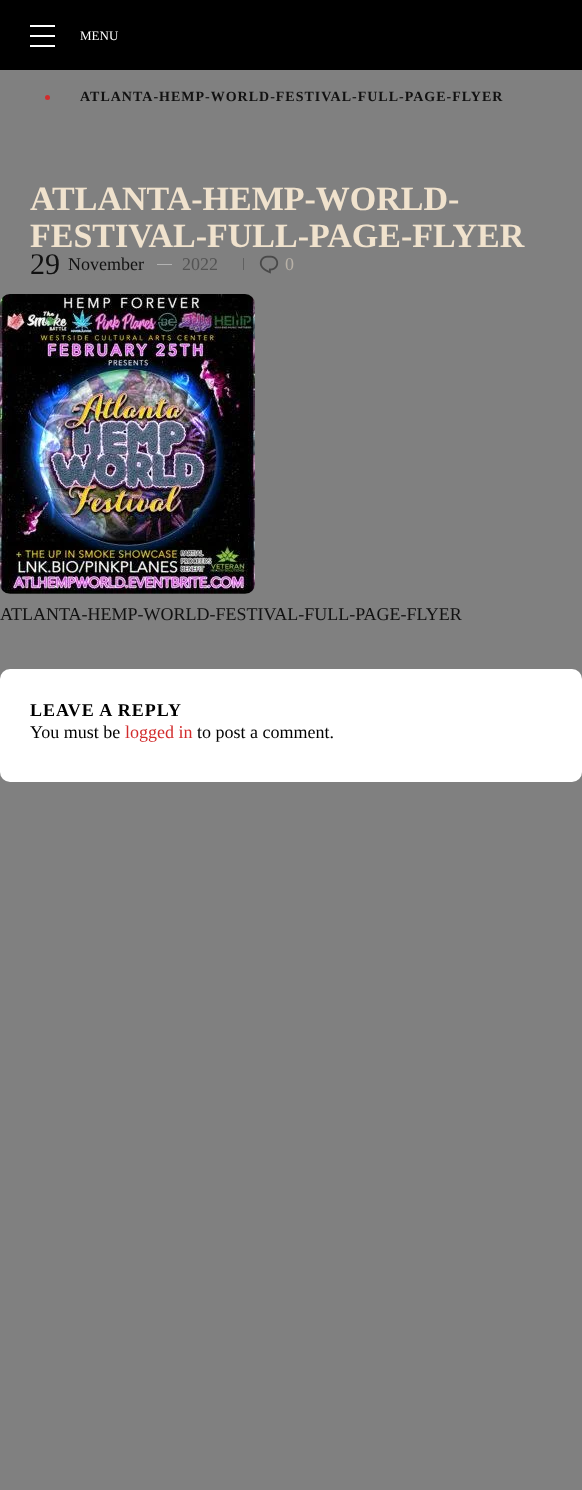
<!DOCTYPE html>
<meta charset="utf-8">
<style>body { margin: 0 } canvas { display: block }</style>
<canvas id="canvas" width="582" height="1490"></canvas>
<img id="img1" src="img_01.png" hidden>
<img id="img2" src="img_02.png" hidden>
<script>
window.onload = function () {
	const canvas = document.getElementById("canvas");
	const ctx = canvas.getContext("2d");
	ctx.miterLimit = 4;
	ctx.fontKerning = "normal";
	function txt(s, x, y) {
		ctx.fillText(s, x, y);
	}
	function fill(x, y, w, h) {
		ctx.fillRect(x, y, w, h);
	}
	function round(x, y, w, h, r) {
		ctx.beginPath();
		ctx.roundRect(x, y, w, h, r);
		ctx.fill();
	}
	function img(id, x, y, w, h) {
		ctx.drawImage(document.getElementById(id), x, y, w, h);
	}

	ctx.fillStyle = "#808080";
	fill(0, 0, 582, 1490);
	ctx.fillStyle = "#000000";
	fill(0, 0, 582, 70);
	ctx.fillStyle = "#FFFFFF";
	fill(30, 25, 25, 2);
	fill(30, 35, 25, 2);
	fill(30, 45, 25, 2);
	ctx.fillStyle = "#D22C2D";
	ctx.beginPath();
	ctx.arc(47.5, 97.5, 2.5, 0, Math.PI * 2);
	ctx.fill();
	ctx.fillStyle = "#B3B3B3";
	fill(157, 264, 15, 1);
	ctx.fillStyle = "#606060";
	fill(243, 258, 1, 12);
	img("img1", 259, 255, 20, 19);
	img("img2", 0, 294, 255, 300);
	ctx.fillStyle = "#FFFFFF";
	round(0, 669, 582, 113, 10);
	ctx.font = "13px Liberation Serif";
	txt("MENU", 80, 40);
	ctx.letterSpacing = "1px";
	ctx.font = "bold 14px Liberation Serif";
	ctx.fillStyle = "#111111";
	txt("ATLANTA-HEMP-WORLD-FESTIVAL-FULL-PAGE-FLYER", 80, 101);
	ctx.letterSpacing = "0px";
	ctx.font = "bold 34px Liberation Serif";
	ctx.fillStyle = "#F0E2CD";
	txt("ATLANTA-HEMP-WORLD-", 30, 210);
	txt("FESTIVAL-FULL-PAGE-FLYER", 30, 247);
	ctx.font = "30px Liberation Serif";
	ctx.fillStyle = "#111111";
	txt("29", 30, 274);
	ctx.font = "18px Liberation Serif";
	txt("November", 68, 270);
	ctx.fillStyle = "#545454";
	txt("2022", 182, 270);
	ctx.fillStyle = "#B8B1A7";
	txt("0", 285, 270);
	ctx.fillStyle = "#111111";
	txt("ATLANTA-HEMP-WORLD-FESTIVAL-FULL-PAGE-FLYER", 0, 620);
	ctx.letterSpacing = "1px";
	ctx.font = "bold 18px Liberation Serif";
	ctx.fillStyle = "#000000";
	txt("LEAVE A REPLY", 30, 716);
	ctx.letterSpacing = "0px";
	ctx.font = "18px Liberation Serif";
	txt("You must be", 30, 738);
	ctx.fillStyle = "#D22C2D";
	txt("logged in", 125, 738);
	ctx.fillStyle = "#000000";
	txt("to post a comment.", 197, 738);
};
</script>
